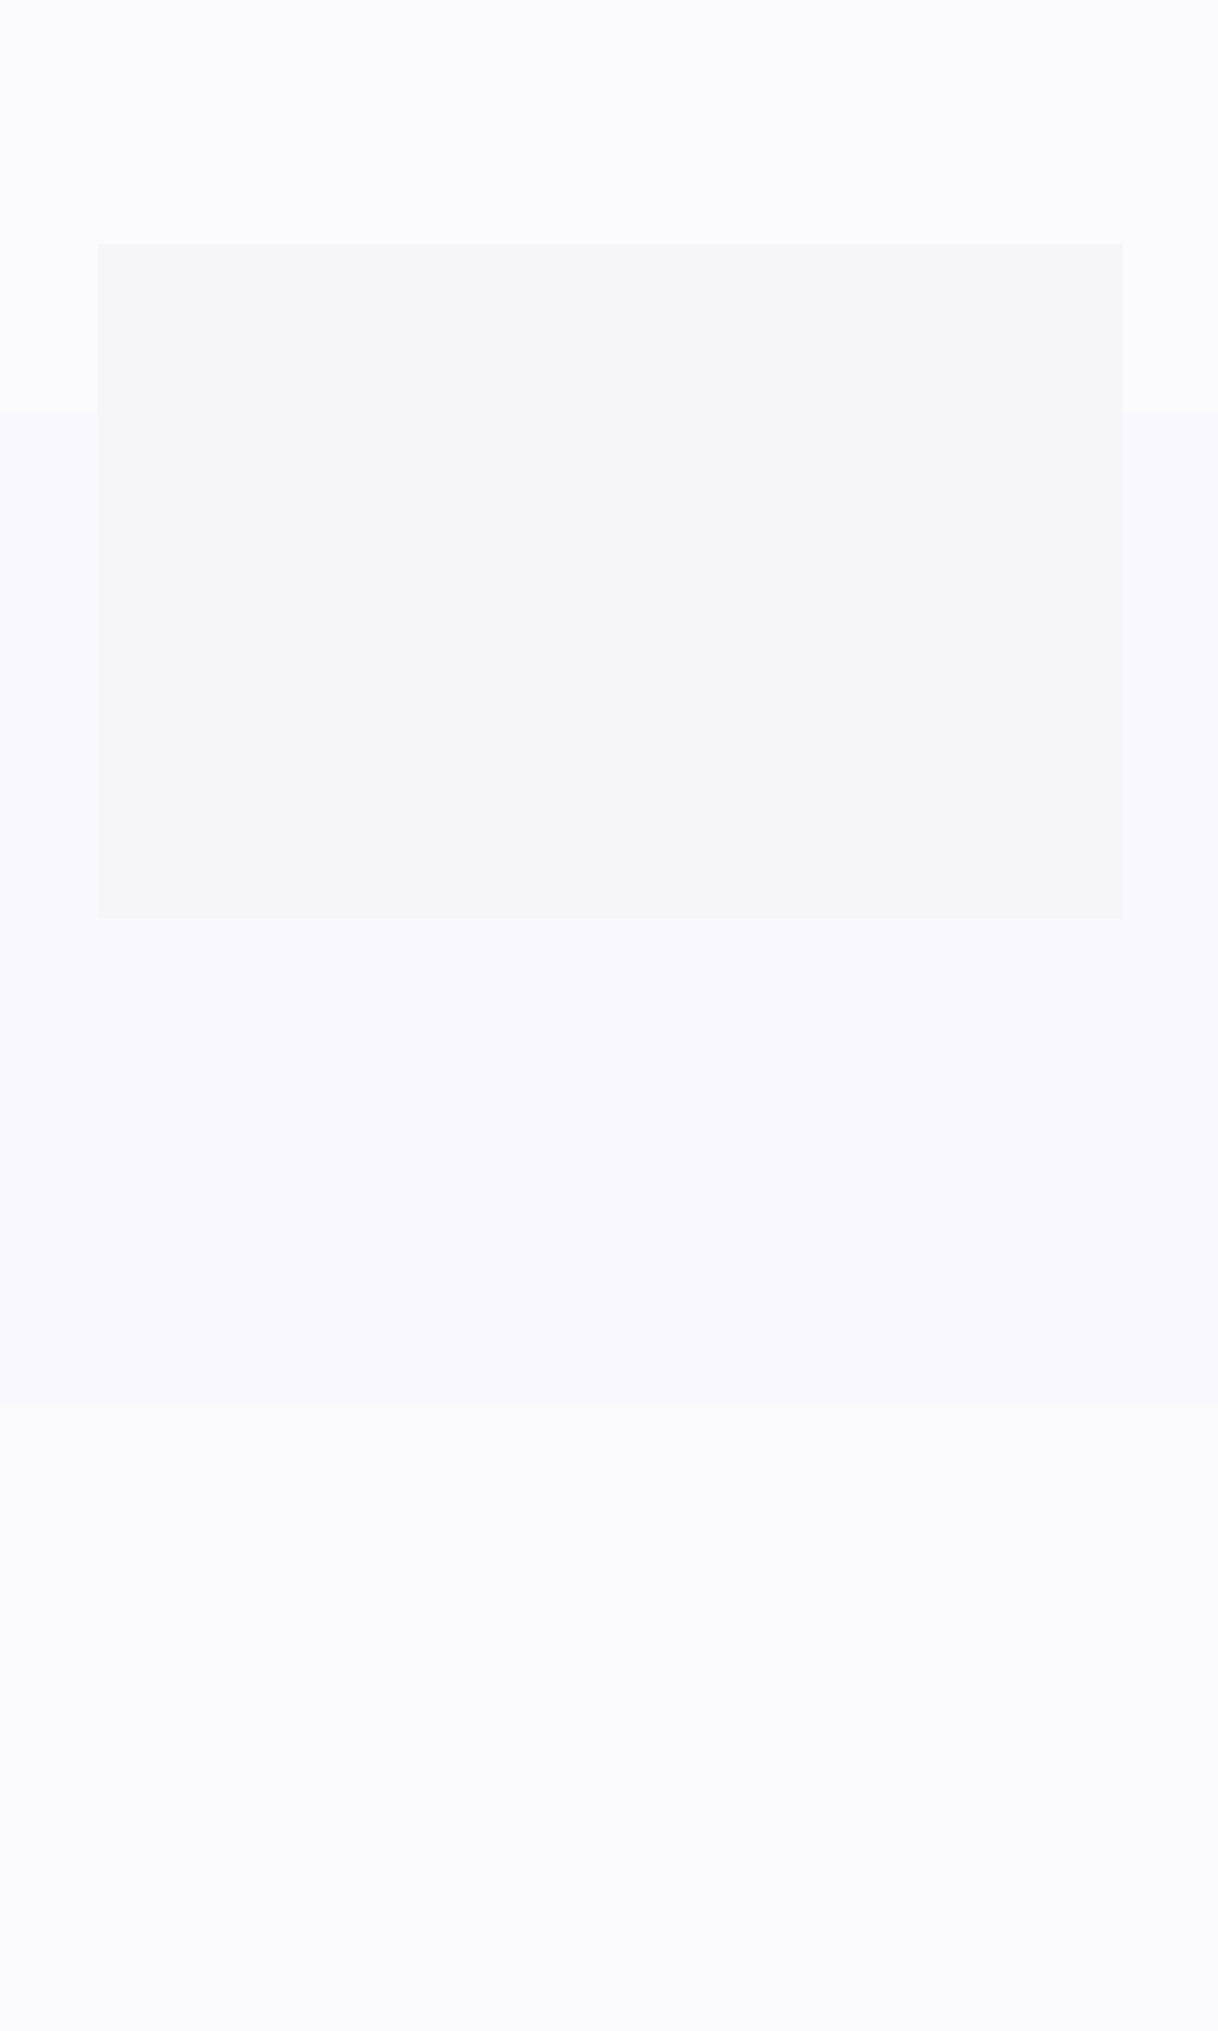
<!DOCTYPE html>
<meta charset="utf-8">
<style>body { margin: 0 } canvas { display: block }</style>
<canvas id="canvas" width="1218" height="2031"></canvas>
<script>
window.onload = function () {
	const canvas = document.getElementById("canvas");
	const ctx = canvas.getContext("2d");
	ctx.miterLimit = 4;
	ctx.fontKerning = "normal";
	function fill(x, y, w, h) {
		ctx.fillRect(x, y, w, h);
	}

	ctx.fillStyle = "#FBFBFE";
	fill(0, 0, 1218, 2031);
	ctx.fillStyle = "#F8F8FE";
	fill(0, 413, 1218, 992);
	ctx.fillStyle = "#F6F6FA";
	fill(98, 244, 1025, 675);
};
</script>
